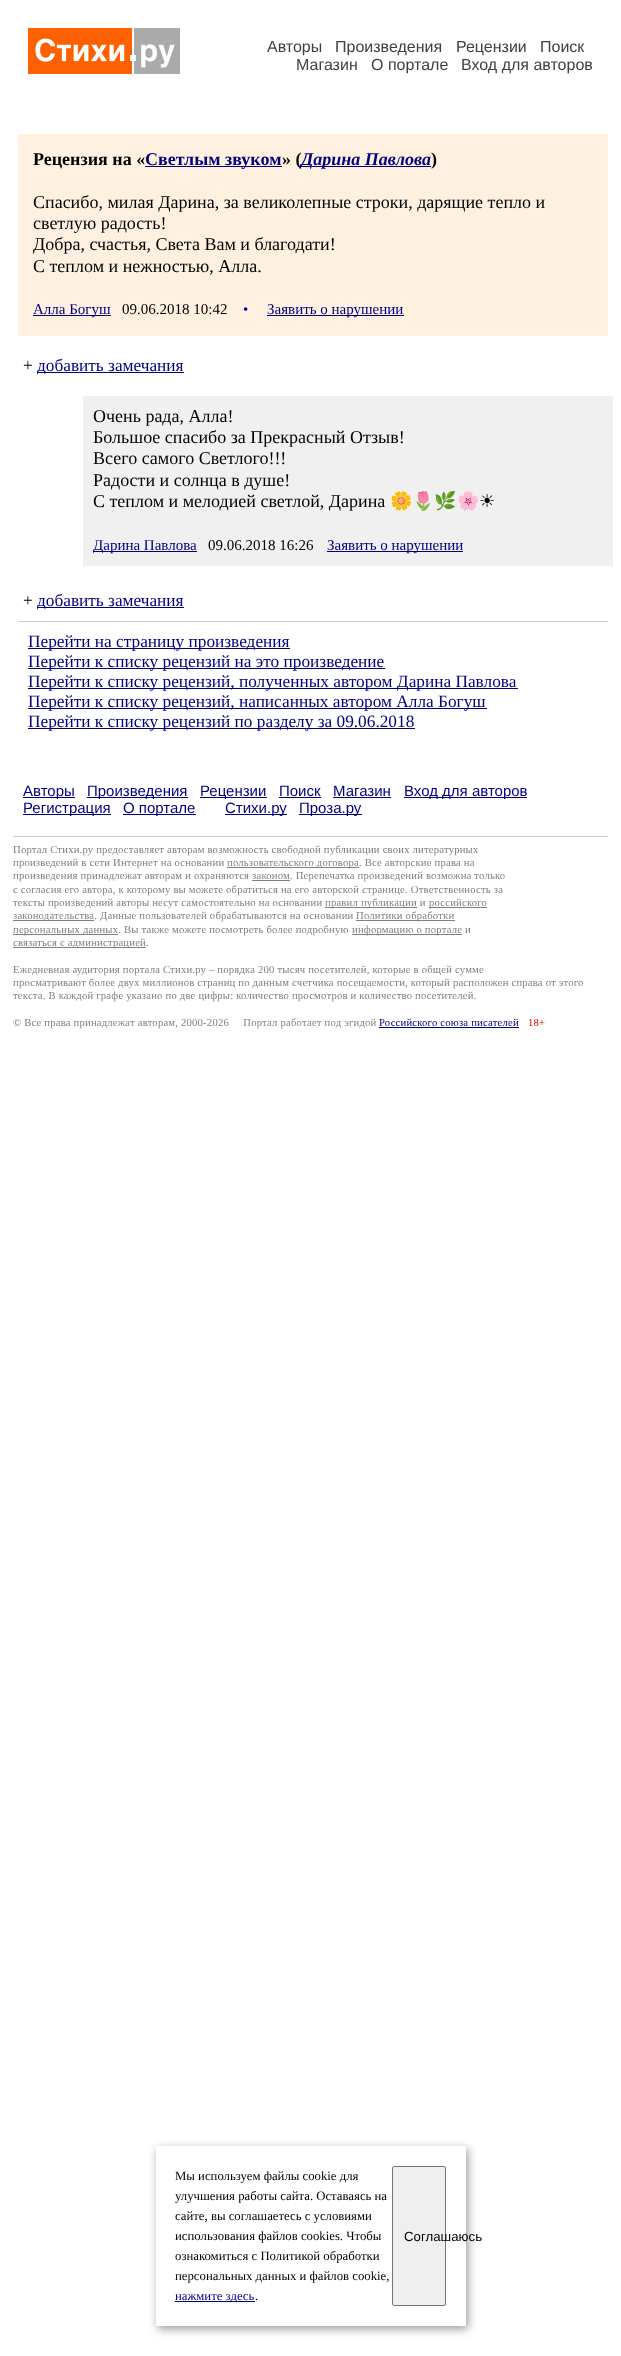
<!DOCTYPE html>
<meta charset="utf-8">
<style>body { margin: 0 } canvas { display: block }</style>
<canvas id="canvas" width="621" height="2356"></canvas>
<img id="img1" src="img_01.png" hidden>
<script>
window.onload = function () {
	const canvas = document.getElementById("canvas");
	const ctx = canvas.getContext("2d");
	ctx.miterLimit = 4;
	ctx.fontKerning = "normal";
	function txt(s, x, y) {
		ctx.fillText(s, x, y);
	}
	function fill(x, y, w, h) {
		ctx.fillRect(x, y, w, h);
	}
	function round(x, y, w, h, r) {
		ctx.beginPath();
		ctx.roundRect(x, y, w, h, r);
		ctx.fill();
	}
	function img(id, x, y, w, h) {
		ctx.drawImage(document.getElementById(id), x, y, w, h);
	}

	ctx.fillStyle = "#FFFFFF";
	fill(0, 0, 621, 2356);
	img("img1", 28, 28, 152, 46);
	ctx.fillStyle = "#FFF0E0";
	fill(18, 134, 590, 202);
	ctx.fillStyle = "#000080";
	fill(145, 166, 137, 1);
	fill(301, 166, 130, 1);
	fill(33, 315, 78, 1);
	fill(267, 315, 137, 1);
	fill(37, 372, 147, 1);
	ctx.fillStyle = "#F0F0F0";
	fill(83, 396, 530, 170);
	ctx.fillStyle = "#000080";
	fill(93, 551, 104, 1);
	fill(327, 551, 136, 1);
	fill(37, 607, 147, 1);
	ctx.fillStyle = "#CCCCCC";
	fill(18, 621, 590, 1);
	ctx.fillStyle = "#000080";
	fill(28, 648, 262, 1);
	fill(28, 668, 357, 1);
	fill(28, 688, 490, 1);
	fill(28, 708, 459, 1);
	fill(28, 728, 387, 1);
	ctx.fillStyle = "rgba(0, 0, 0, 0.4)";
	ctx.filter = "blur(5px)";
	ctx.beginPath();
	ctx.roundRect(158, 2149, 310, 180, 1);
	ctx.fill();
	ctx.filter = "none";
	ctx.fillStyle = "#FFFFFF";
	round(156, 2146, 310, 180, 1);
	ctx.fillStyle = "#000080";
	fill(175, 2301, 80, 1);
	ctx.fillStyle = "#EFEFEF";
	ctx.beginPath();
	ctx.roundRect(392.5, 2166.5, 53, 139, 1.5);
	ctx.fill();
	ctx.strokeStyle = "#767676";
	ctx.stroke();
	ctx.fillStyle = "#000080";
	fill(23, 797, 52, 1);
	fill(87, 797, 101, 1);
	fill(200, 797, 67, 1);
	fill(279, 797, 42, 1);
	fill(333, 797, 58, 1);
	fill(404, 797, 123, 1);
	fill(23, 814, 88, 1);
	fill(123, 814, 73, 1);
	fill(225, 814, 62, 1);
	fill(299, 814, 63, 1);
	ctx.fillStyle = "#CCCCCC";
	fill(13, 836, 595, 1);
	ctx.fillStyle = "#808080";
	fill(227, 867, 132, 1);
	fill(252, 880, 38, 1);
	fill(325, 907, 92, 1);
	fill(429, 907, 58, 1);
	fill(13, 920, 81, 1);
	fill(356, 920, 99, 1);
	fill(13, 934, 105, 1);
	fill(352, 934, 110, 1);
	fill(13, 947, 133, 1);
	ctx.fillStyle = "#000080";
	fill(379, 1027, 140, 1);
	ctx.font = "16px Liberation Sans";
	ctx.fillStyle = "#404040";
	txt("Авторы", 267, 52);
	txt("Произведения", 335, 52);
	txt("Рецензии", 456, 52);
	txt("Поиск", 540, 52);
	txt("Магазин", 296, 70);
	txt("О портале", 371, 70);
	txt("Вход для авторов", 461, 70);
	ctx.font = "bold 18px Liberation Serif";
	ctx.fillStyle = "#000000";
	txt("Рецензия на «", 33, 165);
	ctx.fillStyle = "#000080";
	txt("Светлым звуком", 145, 165);
	ctx.fillStyle = "#000000";
	txt("» (", 282, 165);
	ctx.font = "italic bold 18px Liberation Serif";
	ctx.fillStyle = "#000080";
	txt("Дарина Павлова", 301, 165);
	ctx.font = "bold 18px Liberation Serif";
	ctx.fillStyle = "#000000";
	txt(")", 431, 165);
	ctx.font = "18px Liberation Serif";
	txt("Спасибо, милая Дарина, за великолепные строки, дарящие тепло и", 33, 208);
	txt("светлую радость!", 33, 229);
	txt("Добра, счастья, Света Вам и благодати!", 33, 250);
	txt("С теплом и нежностью, Алла.", 33, 272);
	ctx.font = "15px Liberation Serif";
	ctx.fillStyle = "#000080";
	txt("Алла Богуш", 33, 314);
	ctx.fillStyle = "#000000";
	txt("09.06.2018 10:42", 122, 314);
	ctx.fillStyle = "#000080";
	txt("•", 243, 314);
	txt("Заявить о нарушении", 267, 314);
	ctx.font = "17.3px Liberation Serif";
	ctx.fillStyle = "#000000";
	txt("+", 23, 371);
	ctx.fillStyle = "#000080";
	txt("добавить замечания", 37, 371);
	ctx.font = "18px Liberation Serif";
	ctx.fillStyle = "#000000";
	txt("Очень рада, Алла!", 93, 422);
	txt("Большое спасибо за Прекрасный Отзыв!", 93, 443);
	txt("Всего самого Светлого!!!", 93, 464);
	txt("Радости и солнца в душе!", 93, 486);
	txt("С теплом и мелодией светлой, Дарина", 93, 507);
	ctx.font = "18px Noto Color Emoji";
	txt("🌼🌷🌿🌸", 390, 507);
	ctx.font = "18px DejaVu Sans";
	txt("☀", 479, 507);
	ctx.font = "15px Liberation Serif";
	ctx.fillStyle = "#000080";
	txt("Дарина Павлова", 93, 550);
	ctx.fillStyle = "#000000";
	txt("09.06.2018 16:26", 208, 550);
	ctx.fillStyle = "#000080";
	txt("Заявить о нарушении", 327, 550);
	ctx.font = "17.3px Liberation Serif";
	ctx.fillStyle = "#000000";
	txt("+", 23, 606);
	ctx.fillStyle = "#000080";
	txt("добавить замечания", 37, 606);
	txt("Перейти на страницу произведения", 28, 647);
	txt("Перейти к списку рецензий на это произведение", 28, 667);
	txt("Перейти к списку рецензий, полученных автором Дарина Павлова", 28, 687);
	txt("Перейти к списку рецензий, написанных автором Алла Богуш", 28, 707);
	txt("Перейти к списку рецензий по разделу за 09.06.2018", 28, 727);
	ctx.font = "12.75px Liberation Serif";
	ctx.fillStyle = "#000000";
	txt("Мы используем файлы cookie для", 175, 2180);
	txt("улучшения работы сайта. Оставаясь на", 175, 2200);
	txt("сайте, вы соглашаетесь с условиями", 175, 2220);
	txt("использования файлов cookies. Чтобы", 175, 2240);
	txt("ознакомиться с Политикой обработки", 175, 2260);
	txt("персональных данных и файлов cookie,", 175, 2280);
	ctx.fillStyle = "#000080";
	txt("нажмите здесь", 175, 2300);
	ctx.fillStyle = "#000000";
	txt(".", 255, 2300);
	ctx.font = "13.25px Liberation Sans";
	txt("Соглашаюсь", 404, 2241);
	ctx.font = "15px Liberation Sans";
	ctx.fillStyle = "#000080";
	txt("Авторы", 23, 796);
	txt("Произведения", 87, 796);
	txt("Рецензии", 200, 796);
	txt("Поиск", 279, 796);
	txt("Магазин", 333, 796);
	txt("Вход для авторов", 404, 796);
	txt("Регистрация", 23, 813);
	txt("О портале", 123, 813);
	txt("Стихи.ру", 225, 813);
	txt("Проза.ру", 299, 813);
	ctx.letterSpacing = "0.2px";
	ctx.font = "10.67px Liberation Serif";
	ctx.fillStyle = "#808080";
	txt("Портал Стихи.ру предоставляет авторам возможность свободной публикации своих литературных", 13, 853);
	txt("произведений в сети Интернет на основании", 13, 866);
	txt("пользовательского договора. Все авторские права на", 227, 866);
	txt("произведения принадлежат авторам и охраняются законом. Перепечатка произведений возможна только", 13, 879);
	txt("с согласия его автора, к которому вы можете обратиться на его авторской странице. Ответственность за", 13, 893);
	txt("тексты произведений авторы несут самостоятельно на основании", 13, 906);
	txt("правил публикации и", 325, 906);
	txt("российского", 429, 906);
	txt("законодательства. Данные пользователей обрабатываются на основании", 13, 919);
	txt("Политики обработки", 356, 919);
	txt("персональных данных. Вы также можете посмотреть более подробную", 13, 933);
	txt("информацию о портале и", 352, 933);
	txt("связаться с администрацией.", 13, 946);
	txt("Ежедневная аудитория портала Стихи.ру – порядка 200 тысяч посетителей, которые в общей сумме", 13, 973);
	txt("просматривают более двух миллионов страниц по данным счетчика посещаемости, который расположен справа от этого", 13, 986);
	txt("текста. В каждой графе указано по две цифры: количество просмотров и количество посетителей.", 13, 999);
	txt("© Все права принадлежат авторам, 2000-2026     Портал работает под эгидой", 13, 1026);
	ctx.fillStyle = "#000080";
	txt("Российского союза писателей", 379, 1026);
	ctx.fillStyle = "#E00000";
	txt("18+", 528, 1026);
};
</script>
